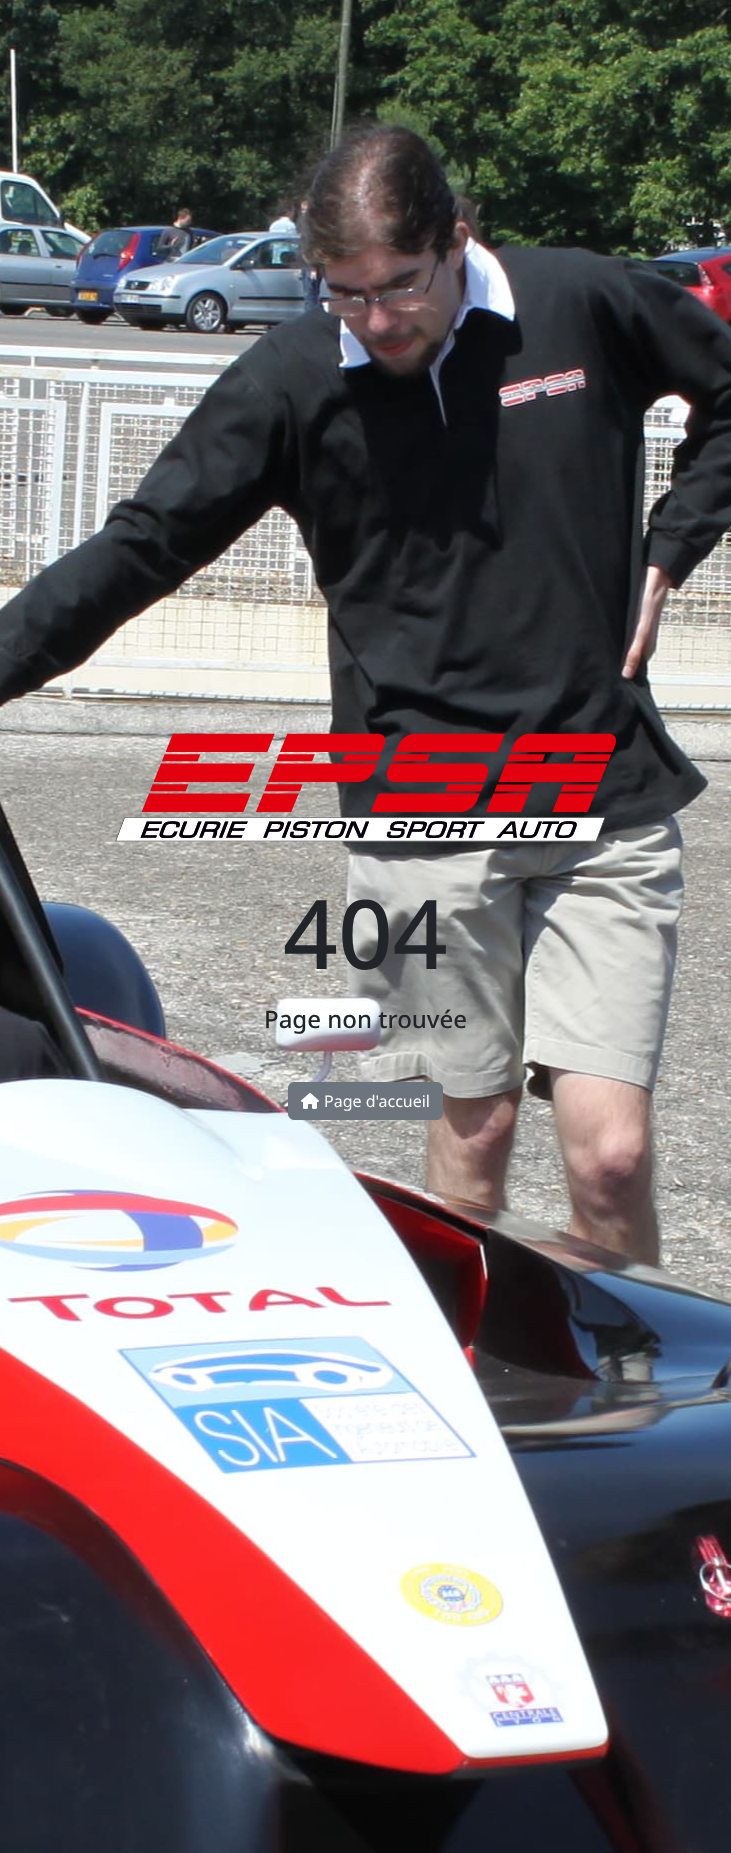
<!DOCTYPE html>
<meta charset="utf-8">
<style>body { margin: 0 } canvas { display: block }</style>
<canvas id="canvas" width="731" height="1853"></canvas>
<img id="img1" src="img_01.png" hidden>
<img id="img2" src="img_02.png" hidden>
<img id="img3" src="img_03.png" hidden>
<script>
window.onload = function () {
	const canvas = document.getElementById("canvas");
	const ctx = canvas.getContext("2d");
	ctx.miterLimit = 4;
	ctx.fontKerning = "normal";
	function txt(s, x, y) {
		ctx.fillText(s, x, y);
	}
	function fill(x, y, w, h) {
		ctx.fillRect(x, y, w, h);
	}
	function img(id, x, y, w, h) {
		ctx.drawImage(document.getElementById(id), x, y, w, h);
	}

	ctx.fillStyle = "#FFFFFF";
	fill(0, 0, 731, 1853);
	img("img1", 0, 0, 731, 1853);
	img("img2", 115, 733, 501, 109);
	ctx.fillStyle = "#6C757D";
	ctx.beginPath();
	ctx.roundRect(288.5, 1082.5, 154, 37, 5.5);
	ctx.fill();
	ctx.strokeStyle = "#6C757D";
	ctx.stroke();
	img("img3", 301, 1093, 18, 16);
	ctx.font = "500 96px Noto Sans";
	ctx.fillStyle = "#212529";
	txt("404", 283, 969);
	ctx.font = "500 24px Noto Sans";
	txt("Page non trouvée", 264, 1028);
	ctx.font = "16px Noto Sans";
	ctx.fillStyle = "#FFFFFF";
	txt("Page d'accueil", 324, 1107);
};
</script>
